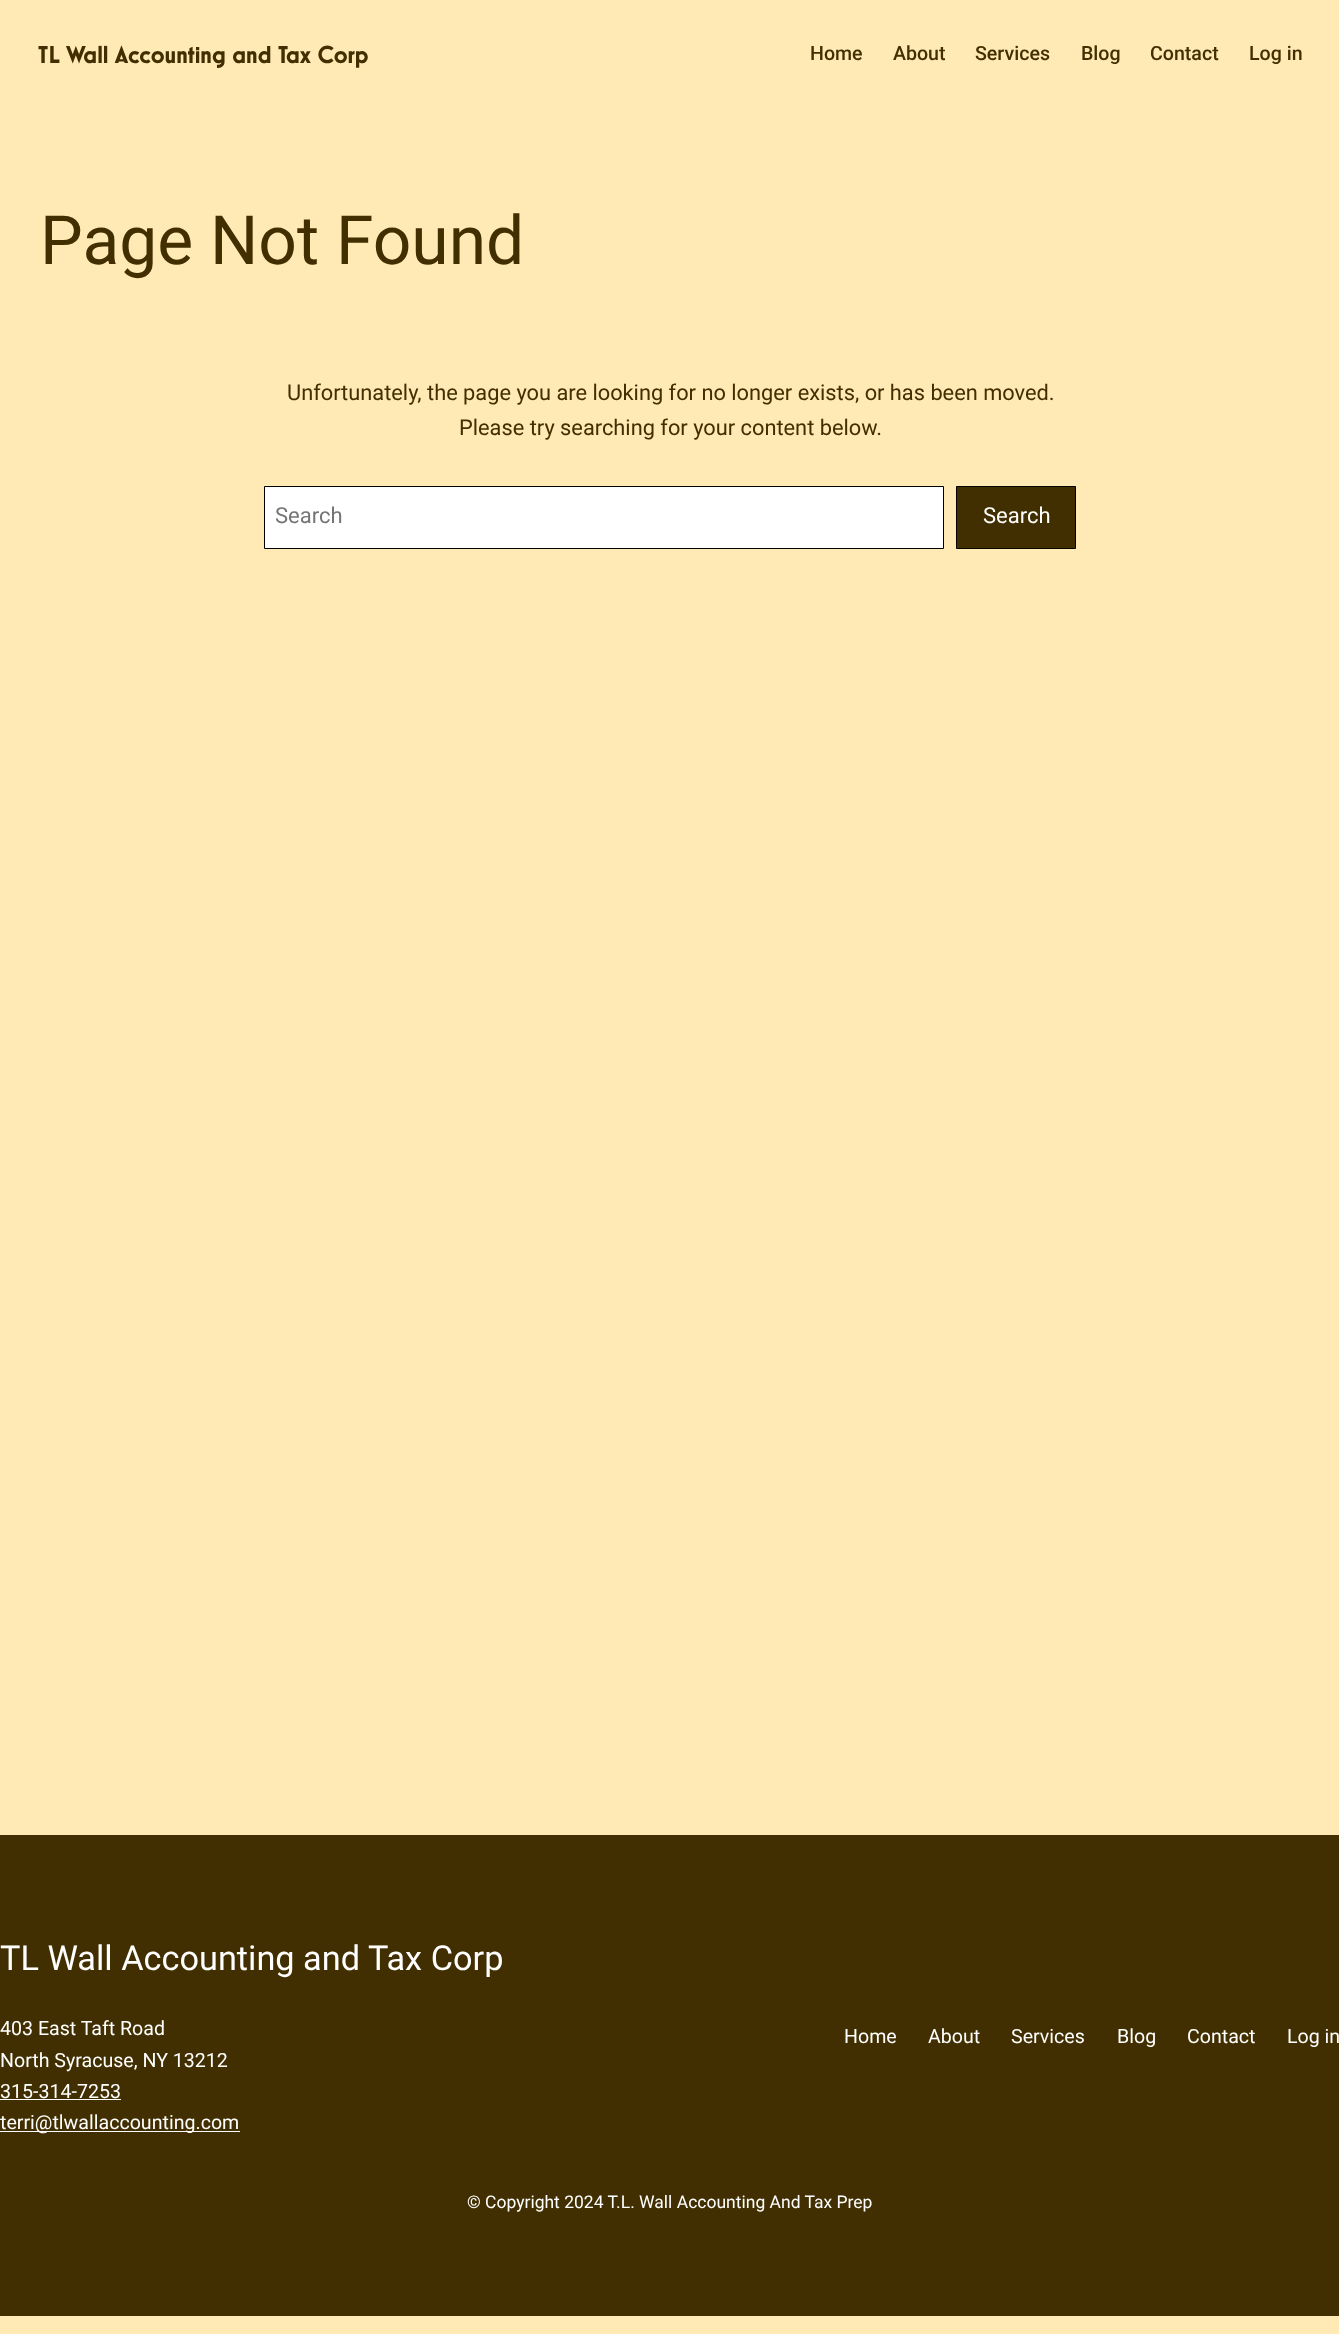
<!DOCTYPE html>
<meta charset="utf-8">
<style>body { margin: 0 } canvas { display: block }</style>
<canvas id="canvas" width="1339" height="2334"></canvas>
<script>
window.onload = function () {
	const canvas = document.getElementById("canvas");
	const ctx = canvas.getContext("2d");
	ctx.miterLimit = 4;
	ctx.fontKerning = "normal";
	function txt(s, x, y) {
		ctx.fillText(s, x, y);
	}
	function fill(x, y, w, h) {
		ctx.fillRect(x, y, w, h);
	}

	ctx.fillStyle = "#FFE9B4";
	fill(0, 0, 1339, 2334);
	ctx.fillStyle = "#FFFFFF";
	ctx.beginPath();
	ctx.rect(264.5, 486.5, 679, 62);
	ctx.fill();
	ctx.strokeStyle = "#000001";
	ctx.stroke();
	ctx.fillStyle = "#422F01";
	ctx.beginPath();
	ctx.rect(956.5, 486.5, 119, 62);
	ctx.fill();
	ctx.stroke();
	fill(0, 1835, 1339, 481);
	ctx.fillStyle = "#FFFFFF";
	fill(0, 2099, 121, 1);
	fill(0, 2131, 240, 1);
	ctx.font = "bold 25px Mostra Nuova";
	ctx.fillStyle = "#422F01";
	txt("TL Wall Accounting and Tax Corp", 38, 63);
	ctx.font = "500 19.6px Roboto";
	txt("Home", 810, 60);
	txt("About", 893, 60);
	txt("Services", 975, 60);
	txt("Blog", 1081, 60);
	txt("Contact", 1150, 60);
	txt("Log in", 1249, 60);
	ctx.font = "67.75px Roboto";
	txt("Page Not Found", 40, 264);
	ctx.font = "21.8px Roboto";
	txt("Unfortunately, the page you are looking for no longer exists, or has been moved.", 287, 400);
	txt("Please try searching for your content below.", 459, 435);
	ctx.font = "22px Roboto";
	ctx.fillStyle = "#757575";
	txt("Search", 275, 523);
	ctx.fillStyle = "#FFFFFF";
	txt("Search", 983, 523);
	ctx.font = "34.3px Roboto";
	txt("TL Wall Accounting and Tax Corp", 0, 1970);
	ctx.font = "19.6px Roboto";
	txt("403 East Taft Road", 0, 2035);
	txt("North Syracuse, NY 13212", 0, 2067);
	txt("315-314-7253", 0, 2098);
	txt("terri@tlwallaccounting.com", 0, 2129);
	txt("Home", 844, 2043);
	txt("About", 928, 2043);
	txt("Services", 1011, 2043);
	txt("Blog", 1117, 2043);
	txt("Contact", 1187, 2043);
	txt("Log in", 1287, 2043);
	ctx.font = "17.5px Roboto";
	txt("© Copyright 2024 T.L. Wall Accounting And Tax Prep", 467, 2208);
};
</script>
